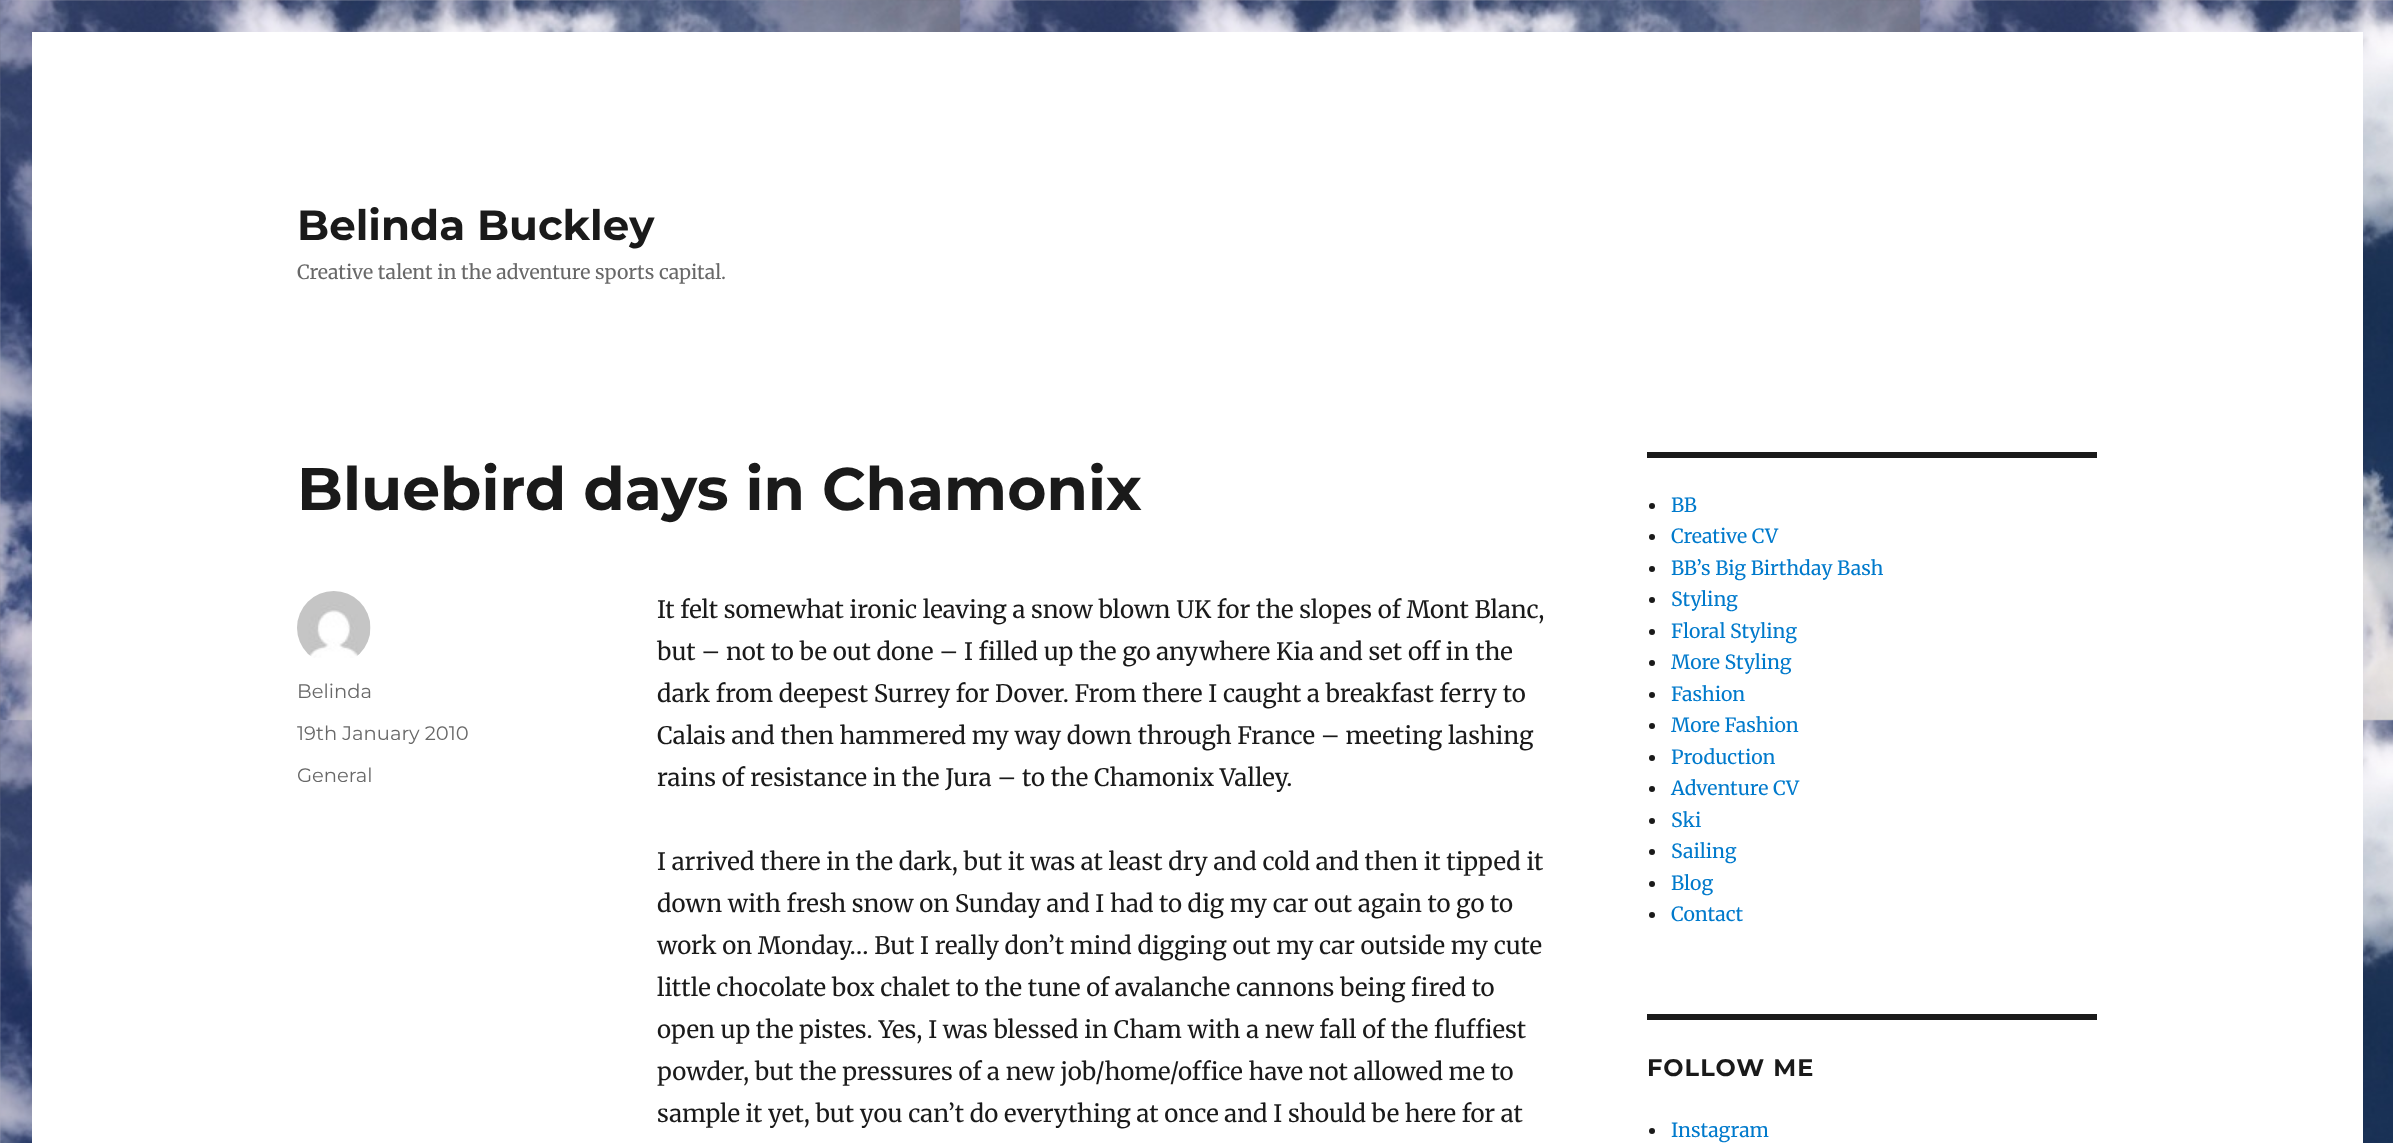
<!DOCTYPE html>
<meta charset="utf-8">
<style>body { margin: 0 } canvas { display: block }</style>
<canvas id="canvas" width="2393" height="1143"></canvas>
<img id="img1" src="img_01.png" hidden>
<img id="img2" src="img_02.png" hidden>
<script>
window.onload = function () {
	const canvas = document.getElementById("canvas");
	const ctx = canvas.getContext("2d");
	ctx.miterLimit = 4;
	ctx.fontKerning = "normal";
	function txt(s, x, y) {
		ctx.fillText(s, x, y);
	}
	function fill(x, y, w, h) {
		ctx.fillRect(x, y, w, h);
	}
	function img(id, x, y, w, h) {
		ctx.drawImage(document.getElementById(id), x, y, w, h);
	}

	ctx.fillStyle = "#FFFFFF";
	fill(0, 0, 2393, 1143);
	img("img1", 0, 0, 2393, 1143);
	fill(32, 32, 2331, 1111);
	img("img2", 297, 591, 74, 67);
	ctx.fillStyle = "#1A1A1A";
	fill(1647, 452, 450, 6);
	ctx.beginPath();
	ctx.arc(1652, 506, 3, 0, Math.PI * 2);
	ctx.fill();
	ctx.beginPath();
	ctx.arc(1652, 537, 3, 0, Math.PI * 2);
	ctx.fill();
	ctx.beginPath();
	ctx.arc(1652, 569, 3, 0, Math.PI * 2);
	ctx.fill();
	ctx.beginPath();
	ctx.arc(1652, 600, 3, 0, Math.PI * 2);
	ctx.fill();
	ctx.beginPath();
	ctx.arc(1652, 632, 3, 0, Math.PI * 2);
	ctx.fill();
	ctx.beginPath();
	ctx.arc(1652, 663, 3, 0, Math.PI * 2);
	ctx.fill();
	ctx.beginPath();
	ctx.arc(1652, 695, 3, 0, Math.PI * 2);
	ctx.fill();
	ctx.beginPath();
	ctx.arc(1652, 726, 3, 0, Math.PI * 2);
	ctx.fill();
	ctx.beginPath();
	ctx.arc(1652, 758, 3, 0, Math.PI * 2);
	ctx.fill();
	ctx.beginPath();
	ctx.arc(1652, 789, 3, 0, Math.PI * 2);
	ctx.fill();
	ctx.beginPath();
	ctx.arc(1652, 821, 3, 0, Math.PI * 2);
	ctx.fill();
	ctx.beginPath();
	ctx.arc(1652, 852, 3, 0, Math.PI * 2);
	ctx.fill();
	ctx.beginPath();
	ctx.arc(1652, 884, 3, 0, Math.PI * 2);
	ctx.fill();
	ctx.beginPath();
	ctx.arc(1652, 915, 3, 0, Math.PI * 2);
	ctx.fill();
	fill(1647, 1014, 450, 6);
	ctx.beginPath();
	ctx.arc(1652, 1131, 3, 0, Math.PI * 2);
	ctx.fill();
	ctx.font = "bold 42px Montserrat";
	txt("Belinda Buckley", 297, 240);
	ctx.font = "19.5px Merriweather";
	ctx.fillStyle = "#686868";
	txt("Creative talent in the adventure sports capital.", 297, 279);
	ctx.font = "bold 60px Montserrat";
	ctx.fillStyle = "#1A1A1A";
	txt("Bluebird days in Chamonix", 297, 510);
	ctx.font = "19.5px Montserrat";
	ctx.fillStyle = "#686868";
	txt("Belinda", 297, 698);
	txt("19th January 2010", 297, 740);
	txt("General", 297, 782);
	ctx.font = "24px Merriweather";
	ctx.fillStyle = "#1A1A1A";
	txt("It felt somewhat ironic leaving a snow blown UK for the slopes of Mont Blanc,", 657, 618);
	txt("but – not to be out done – I filled up the go anywhere Kia and set off in the", 657, 660);
	txt("dark from deepest Surrey for Dover. From there I caught a breakfast ferry to", 657, 702);
	txt("Calais and then hammered my way down through France – meeting lashing", 657, 744);
	txt("rains of resistance in the Jura – to the Chamonix Valley.", 657, 786);
	txt("I arrived there in the dark, but it was at least dry and cold and then it tipped it", 657, 870);
	txt("down with fresh snow on Sunday and I had to dig my car out again to go to", 657, 912);
	txt("work on Monday… But I really don’t mind digging out my car outside my cute", 657, 954);
	txt("little chocolate box chalet to the tune of avalanche cannons being fired to", 657, 996);
	txt("open up the pistes. Yes, I was blessed in Cham with a new fall of the fluffiest", 657, 1038);
	txt("powder, but the pressures of a new job/home/office have not allowed me to", 657, 1080);
	txt("sample it yet, but you can’t do everything at once and I should be here for at", 657, 1122);
	ctx.font = "19.5px Merriweather";
	ctx.fillStyle = "#007ACC";
	txt("BB", 1671, 512);
	txt("Creative CV", 1671, 543);
	txt("BB’s Big Birthday Bash", 1671, 575);
	txt("Styling", 1671, 606);
	txt("Floral Styling", 1671, 638);
	txt("More Styling", 1671, 669);
	txt("Fashion", 1671, 701);
	txt("More Fashion", 1671, 732);
	txt("Production", 1671, 764);
	txt("Adventure CV", 1671, 795);
	txt("Ski", 1671, 827);
	txt("Sailing", 1671, 858);
	txt("Blog", 1671, 890);
	txt("Contact", 1671, 921);
	ctx.letterSpacing = "1.1px";
	ctx.font = "bold 24px Montserrat";
	ctx.fillStyle = "#1A1A1A";
	txt("FOLLOW ME", 1647, 1076);
	ctx.letterSpacing = "0px";
	ctx.font = "19.5px Merriweather";
	ctx.fillStyle = "#007ACC";
	txt("Instagram", 1671, 1137);
};
</script>
